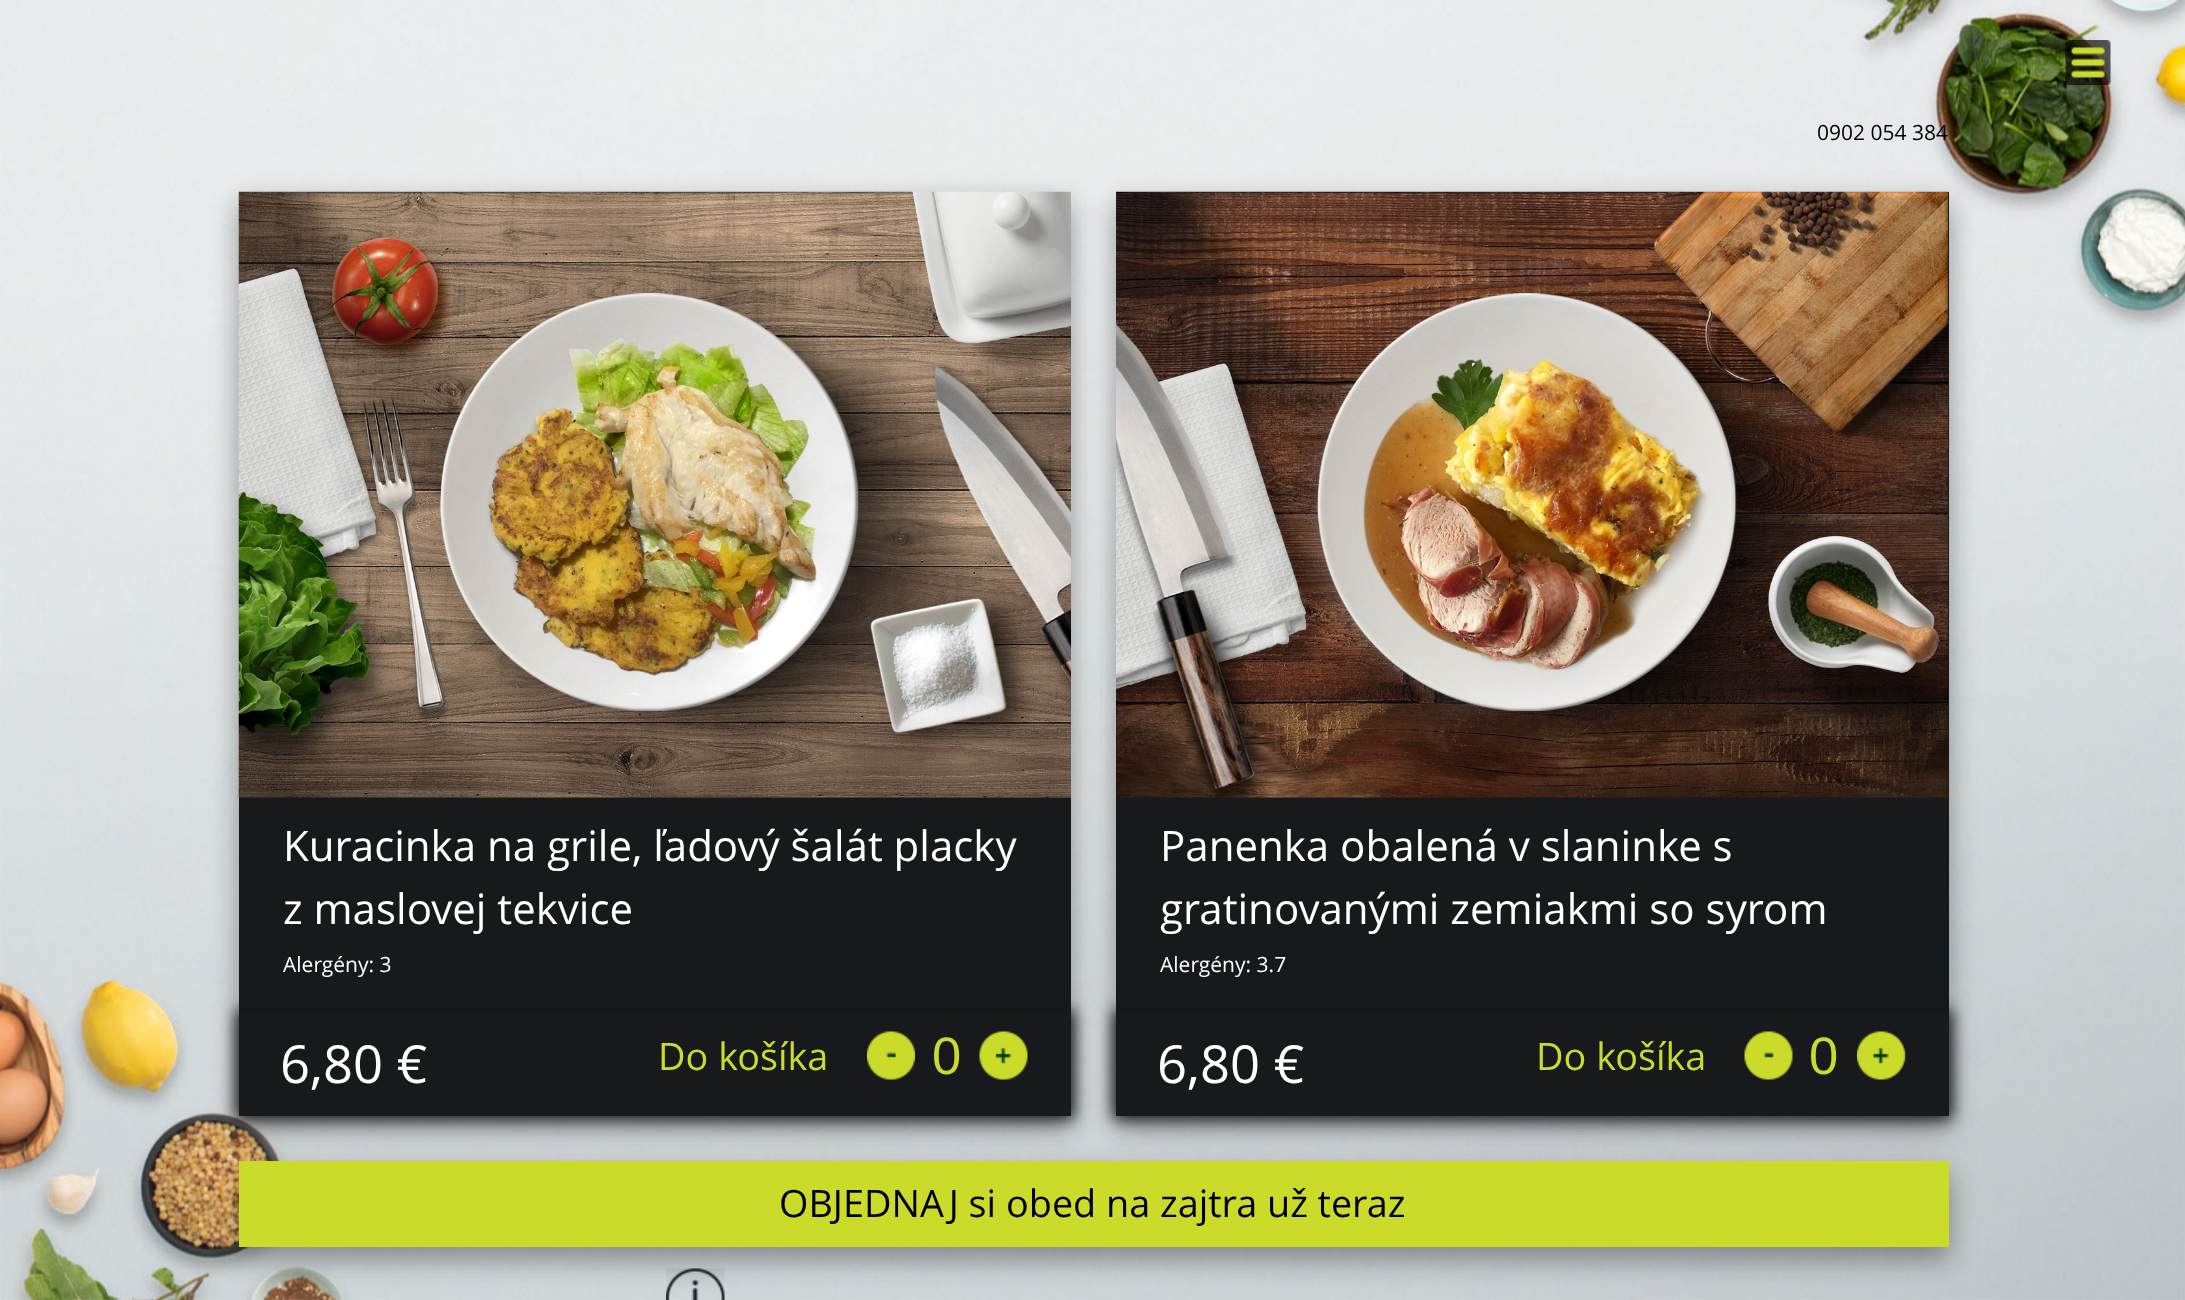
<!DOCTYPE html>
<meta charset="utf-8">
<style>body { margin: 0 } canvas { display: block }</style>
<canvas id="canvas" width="2185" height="1300"></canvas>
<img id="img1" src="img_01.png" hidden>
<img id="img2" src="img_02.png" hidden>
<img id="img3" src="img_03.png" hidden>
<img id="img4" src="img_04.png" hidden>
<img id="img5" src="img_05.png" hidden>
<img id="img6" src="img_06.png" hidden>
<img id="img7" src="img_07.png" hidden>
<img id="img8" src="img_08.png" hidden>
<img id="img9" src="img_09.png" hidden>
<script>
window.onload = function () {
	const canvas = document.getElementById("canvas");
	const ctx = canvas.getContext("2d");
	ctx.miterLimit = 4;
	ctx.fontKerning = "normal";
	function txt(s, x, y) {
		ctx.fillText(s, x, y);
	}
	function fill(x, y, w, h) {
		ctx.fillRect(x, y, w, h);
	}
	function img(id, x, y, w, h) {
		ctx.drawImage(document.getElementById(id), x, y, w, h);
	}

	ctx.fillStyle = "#FFFFFF";
	fill(0, 0, 2185, 1300);
	img("img1", 0, 0, 2185, 1300);
	img("img2", 2065, 40, 46, 45);
	ctx.fillStyle = "rgba(0, 0, 0, 0.19)";
	ctx.filter = "blur(15px)";
	ctx.beginPath();
	ctx.rect(239, 1170, 1710, 86);
	ctx.fill();
	ctx.filter = "none";
	ctx.fillStyle = "rgba(0, 0, 0, 0.2)";
	ctx.filter = "blur(12px)";
	ctx.beginPath();
	ctx.rect(239, 1176, 1710, 86);
	ctx.fill();
	ctx.filter = "none";
	ctx.fillStyle = "#CADB2A";
	fill(239, 1161, 1710, 86);
	ctx.fillStyle = "rgba(0, 0, 0, 0.19)";
	ctx.filter = "blur(15px)";
	ctx.beginPath();
	ctx.rect(239, 201, 832, 924);
	ctx.fill();
	ctx.filter = "none";
	ctx.fillStyle = "rgba(0, 0, 0, 0.2)";
	ctx.filter = "blur(12px)";
	ctx.beginPath();
	ctx.rect(239, 207, 832, 924);
	ctx.fill();
	ctx.filter = "none";
	ctx.fillStyle = "#161A1D";
	fill(239, 797, 832, 319);
	img("img3", 238, 191, 833, 607);
	ctx.save();
	ctx.beginPath();
	ctx.moveTo(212, 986);
	ctx.lineTo(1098, 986);
	ctx.lineTo(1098, 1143);
	ctx.lineTo(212, 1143);
	ctx.closePath();
	ctx.moveTo(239, 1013);
	ctx.lineTo(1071, 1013);
	ctx.lineTo(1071, 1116);
	ctx.lineTo(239, 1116);
	ctx.closePath();
	ctx.clip("evenodd");
	ctx.fillStyle = "#151516";
	ctx.filter = "blur(7.5px)";
	ctx.beginPath();
	ctx.rect(236, 1010, 838, 109);
	ctx.fill();
	ctx.filter = "none";
	ctx.restore();
	img("img4", 867, 1031, 48, 49);
	img("img5", 979, 1031, 49, 49);
	ctx.fillStyle = "rgba(0, 0, 0, 0.19)";
	ctx.filter = "blur(15px)";
	ctx.beginPath();
	ctx.rect(1116, 201, 833, 924);
	ctx.fill();
	ctx.filter = "none";
	ctx.fillStyle = "rgba(0, 0, 0, 0.2)";
	ctx.filter = "blur(12px)";
	ctx.beginPath();
	ctx.rect(1116, 207, 833, 924);
	ctx.fill();
	ctx.filter = "none";
	ctx.fillStyle = "#161A1D";
	fill(1116, 192, 833, 924);
	img("img6", 1116, 191, 833, 607);
	ctx.save();
	ctx.beginPath();
	ctx.moveTo(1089, 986);
	ctx.lineTo(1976, 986);
	ctx.lineTo(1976, 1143);
	ctx.lineTo(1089, 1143);
	ctx.closePath();
	ctx.moveTo(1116, 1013);
	ctx.lineTo(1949, 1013);
	ctx.lineTo(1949, 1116);
	ctx.lineTo(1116, 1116);
	ctx.closePath();
	ctx.clip("evenodd");
	ctx.fillStyle = "#151516";
	ctx.filter = "blur(7.5px)";
	ctx.beginPath();
	ctx.rect(1113, 1010, 839, 109);
	ctx.fill();
	ctx.filter = "none";
	ctx.restore();
	img("img7", 1744, 1031, 49, 49);
	img("img8", 1857, 1031, 49, 49);
	img("img9", 666, 1268, 59, 32);
	ctx.font = "21px Open Sans";
	ctx.fillStyle = "#000000";
	txt("0902 054 384", 1817, 140);
	ctx.font = "42px Open Sans";
	ctx.fillStyle = "#FFFFFF";
	txt("Kuracinka na grile, ľadový šalát placky", 283, 861);
	txt("z maslovej tekvice", 283, 924);
	ctx.font = "21px Open Sans";
	txt("Alergény: 3", 283, 972);
	ctx.font = "52.5px Open Sans";
	txt("6,80 €", 280, 1083);
	ctx.font = "37.75px Open Sans";
	ctx.fillStyle = "#CBDB2A";
	txt("Do košíka", 658, 1070);
	ctx.font = "52.5px Liberation Sans";
	txt("0", 932, 1074);
	ctx.font = "42px Open Sans";
	ctx.fillStyle = "#FFFFFF";
	txt("Panenka obalená v slaninke s", 1160, 861);
	txt("gratinovanými zemiakmi so syrom", 1160, 924);
	ctx.font = "21px Open Sans";
	txt("Alergény: 3.7", 1160, 972);
	ctx.font = "52.5px Open Sans";
	txt("6,80 €", 1157, 1083);
	ctx.font = "37.75px Open Sans";
	ctx.fillStyle = "#CBDB2A";
	txt("Do košíka", 1536, 1070);
	ctx.font = "52.5px Liberation Sans";
	txt("0", 1809, 1074);
	ctx.font = "37.75px Open Sans";
	ctx.fillStyle = "#000000";
	txt("OBJEDNAJ si obed na zajtra už teraz", 779, 1217);
};
</script>
